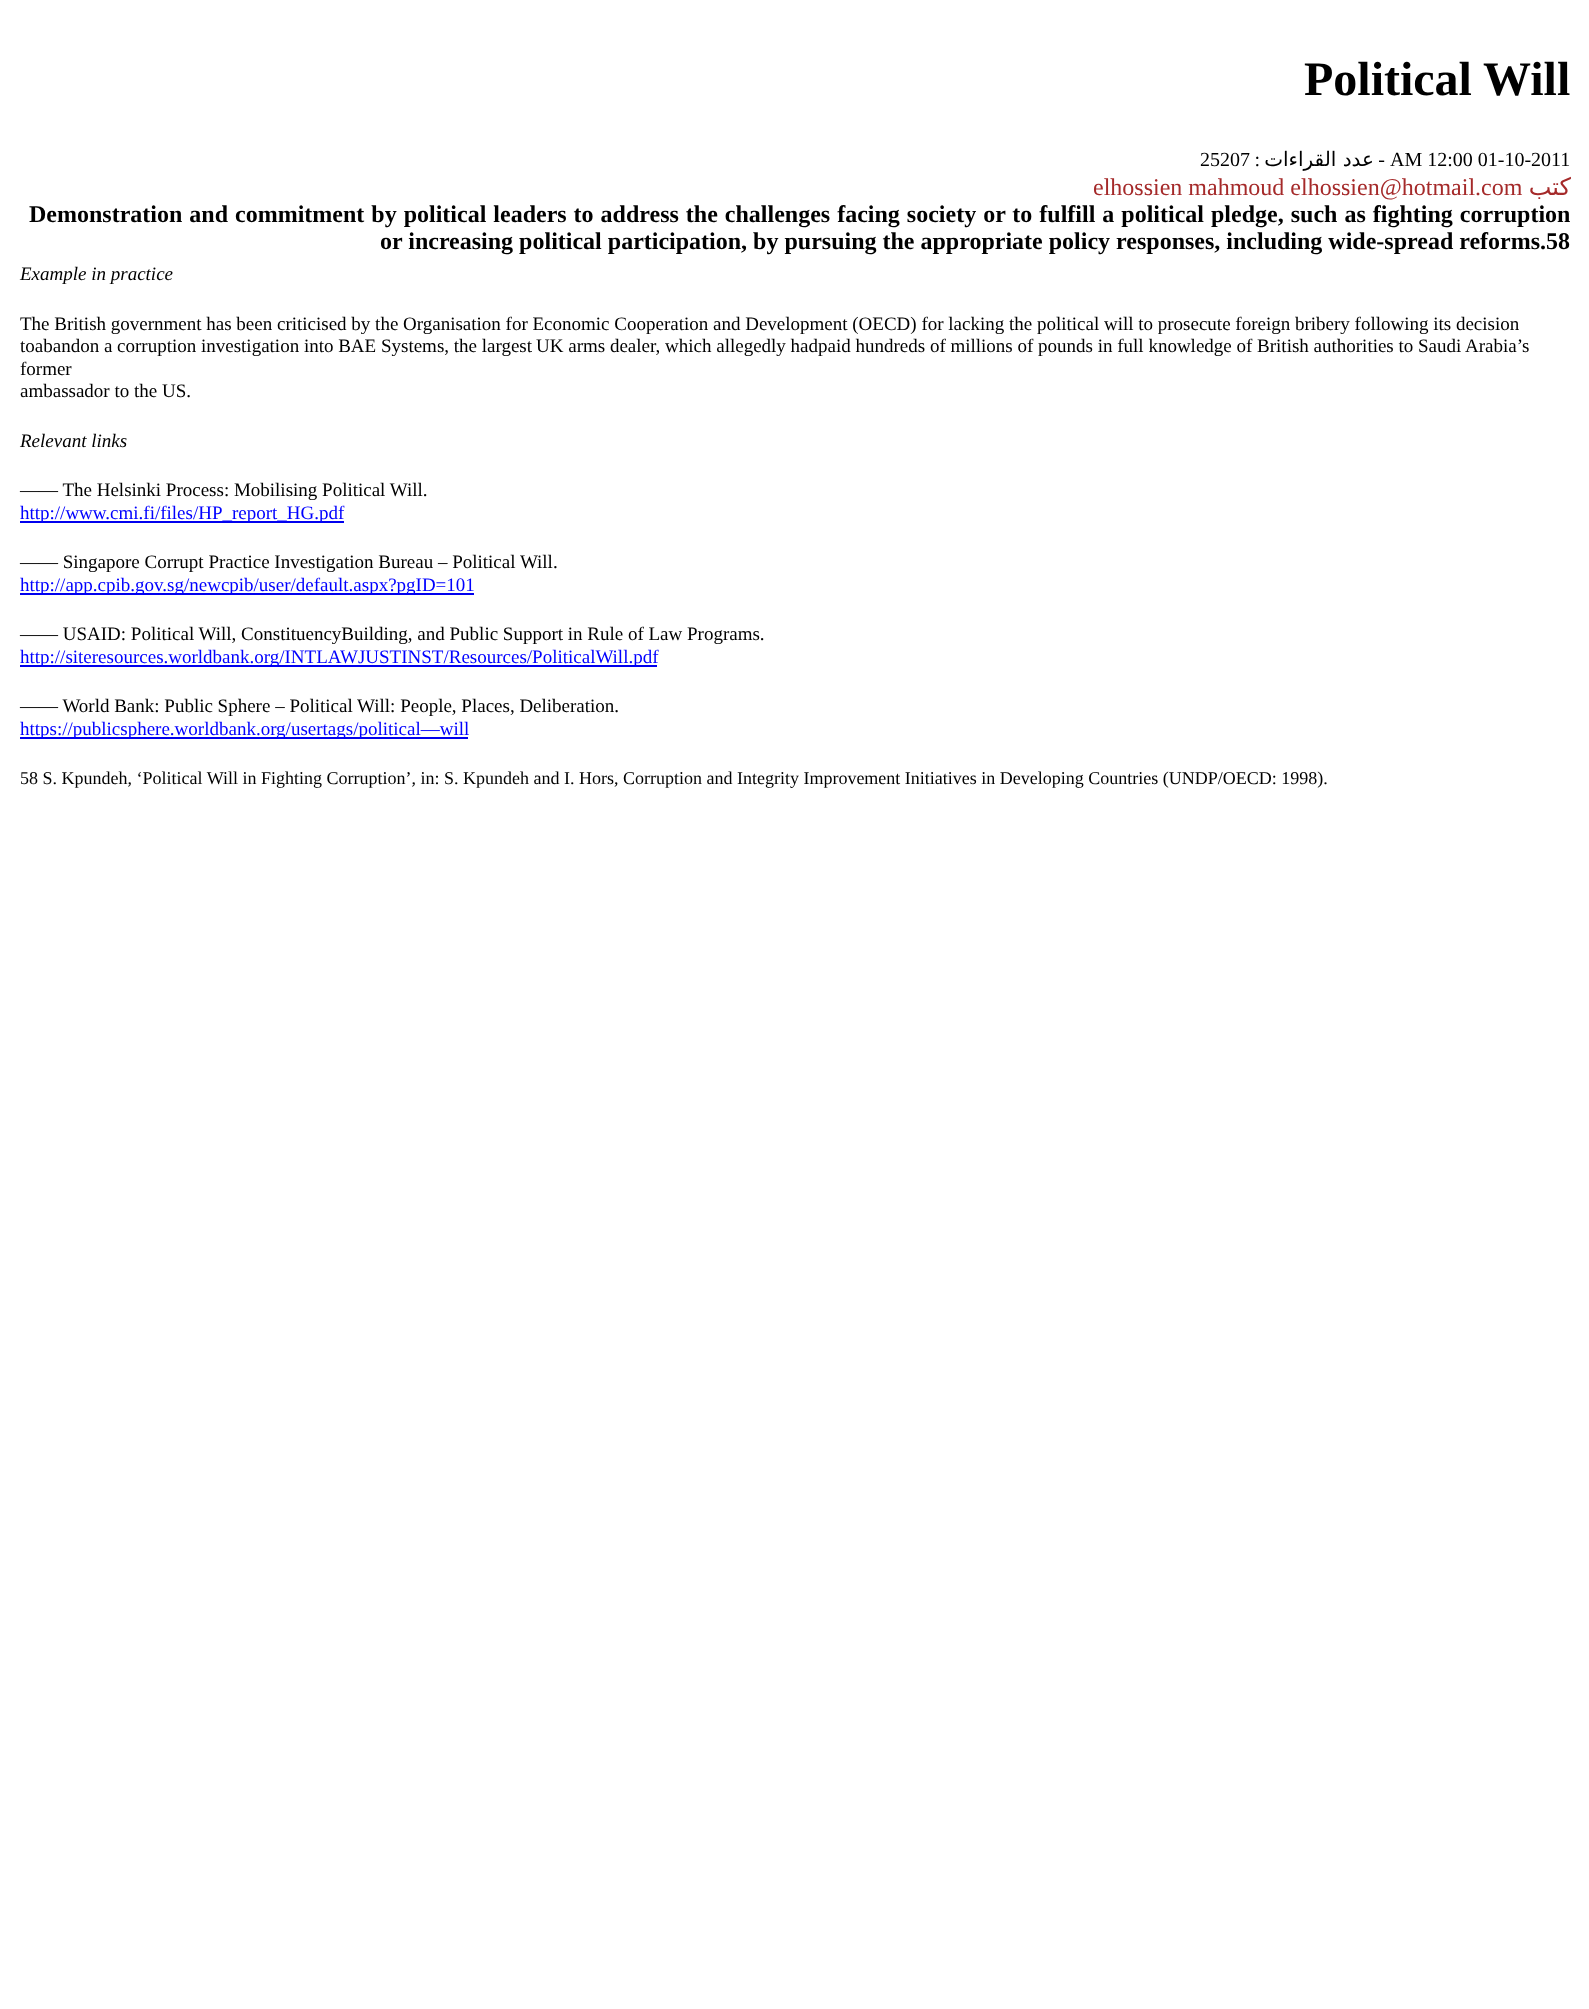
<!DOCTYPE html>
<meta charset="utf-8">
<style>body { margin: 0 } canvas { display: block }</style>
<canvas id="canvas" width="1589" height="2009"></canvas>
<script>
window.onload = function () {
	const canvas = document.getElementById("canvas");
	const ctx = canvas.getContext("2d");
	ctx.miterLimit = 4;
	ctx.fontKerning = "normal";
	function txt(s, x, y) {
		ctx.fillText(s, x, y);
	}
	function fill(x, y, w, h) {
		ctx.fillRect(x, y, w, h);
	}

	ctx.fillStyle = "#FFFFFF";
	fill(0, 0, 1589, 2009);
	ctx.fillStyle = "#0000EE";
	fill(20, 521, 324, 2);
	fill(20, 593, 454, 2);
	fill(20, 665, 637, 2);
	fill(20, 737, 448, 2);
	ctx.font = "bold 48px Liberation Serif";
	ctx.fillStyle = "#000000";
	txt("Political Will", 1304, 95);
	ctx.font = "20px Liberation Serif";
	txt("25207", 1200, 166);
	ctx.direction = "rtl";
	txt(":", 1260, 166);
	ctx.font = "20px DejaVu Sans";
	txt("عدد القراءات", 1374, 166);
	ctx.font = "20px Liberation Serif";
	txt("-", 1385, 166);
	ctx.direction = "ltr";
	txt("AM 12:00 01-10-2011", 1390, 166);
	ctx.font = "24px Liberation Serif";
	ctx.fillStyle = "#A52A2A";
	txt("elhossien mahmoud elhossien@hotmail.com", 1093, 195);
	ctx.direction = "rtl";
	ctx.font = "24px DejaVu Sans";
	txt("كتب", 1571, 195);
	ctx.wordSpacing = "1px";
	ctx.direction = "ltr";
	ctx.font = "bold 24px Liberation Serif";
	ctx.fillStyle = "#000000";
	txt("Demonstration and commitment by political leaders to address the challenges facing society or to fulfill a political pledge, such as fighting corruption", 29, 222);
	ctx.wordSpacing = "0px";
	txt("or increasing political participation, by pursuing the appropriate policy responses, including wide-spread reforms.58", 380, 249);
	ctx.font = "italic 19px Liberation Serif";
	txt("Example in practice", 20, 280);
	ctx.font = "19px Liberation Serif";
	txt("The British government has been criticised by the Organisation for Economic Cooperation and Development (OECD) for lacking the political will to prosecute foreign bribery following its decision", 20, 330);
	txt("toabandon a corruption investigation into BAE Systems, the largest", 20, 352);
	txt("UK arms dealer, which allegedly hadpaid hundreds of millions of pounds in full knowledge of British authorities to Saudi Arabia’s", 536, 352);
	txt("former", 20, 375);
	txt("ambassador to the US.", 20, 397);
	ctx.font = "italic 19px Liberation Serif";
	txt("Relevant links", 20, 447);
	ctx.font = "19px Liberation Serif";
	txt("—— The Helsinki Process: Mobilising Political Will.", 20, 496);
	ctx.fillStyle = "#0000FF";
	txt("http://www.cmi.fi/files/HP_report_HG.pdf", 20, 519);
	ctx.fillStyle = "#000000";
	txt("—— Singapore Corrupt Practice Investigation Bureau – Political Will.", 20, 568);
	ctx.fillStyle = "#0000FF";
	txt("http://app.cpib.gov.sg/newcpib/user/default.aspx?pgID=101", 20, 591);
	ctx.fillStyle = "#000000";
	txt("—— USAID: Political Will, ConstituencyBuilding, and Public Support in Rule of Law Programs.", 20, 640);
	ctx.fillStyle = "#0000FF";
	txt("http://siteresources.worldbank.org/INTLAWJUSTINST/Resources/PoliticalWill.pdf", 20, 663);
	ctx.fillStyle = "#000000";
	txt("—— World Bank: Public Sphere – Political Will: People, Places, Deliberation.", 20, 712);
	ctx.fillStyle = "#0000FF";
	txt("https://publicsphere.worldbank.org/usertags/political—will", 20, 735);
	ctx.font = "18px Liberation Serif";
	ctx.fillStyle = "#000000";
	txt("58 S. Kpundeh, ‘Political Will in Fighting Corruption’, in: S. Kpundeh and I. Hors, Corruption and Integrity Improvement Initiatives in Developing Countries (UNDP/OECD: 1998).", 20, 784);
};
</script>
